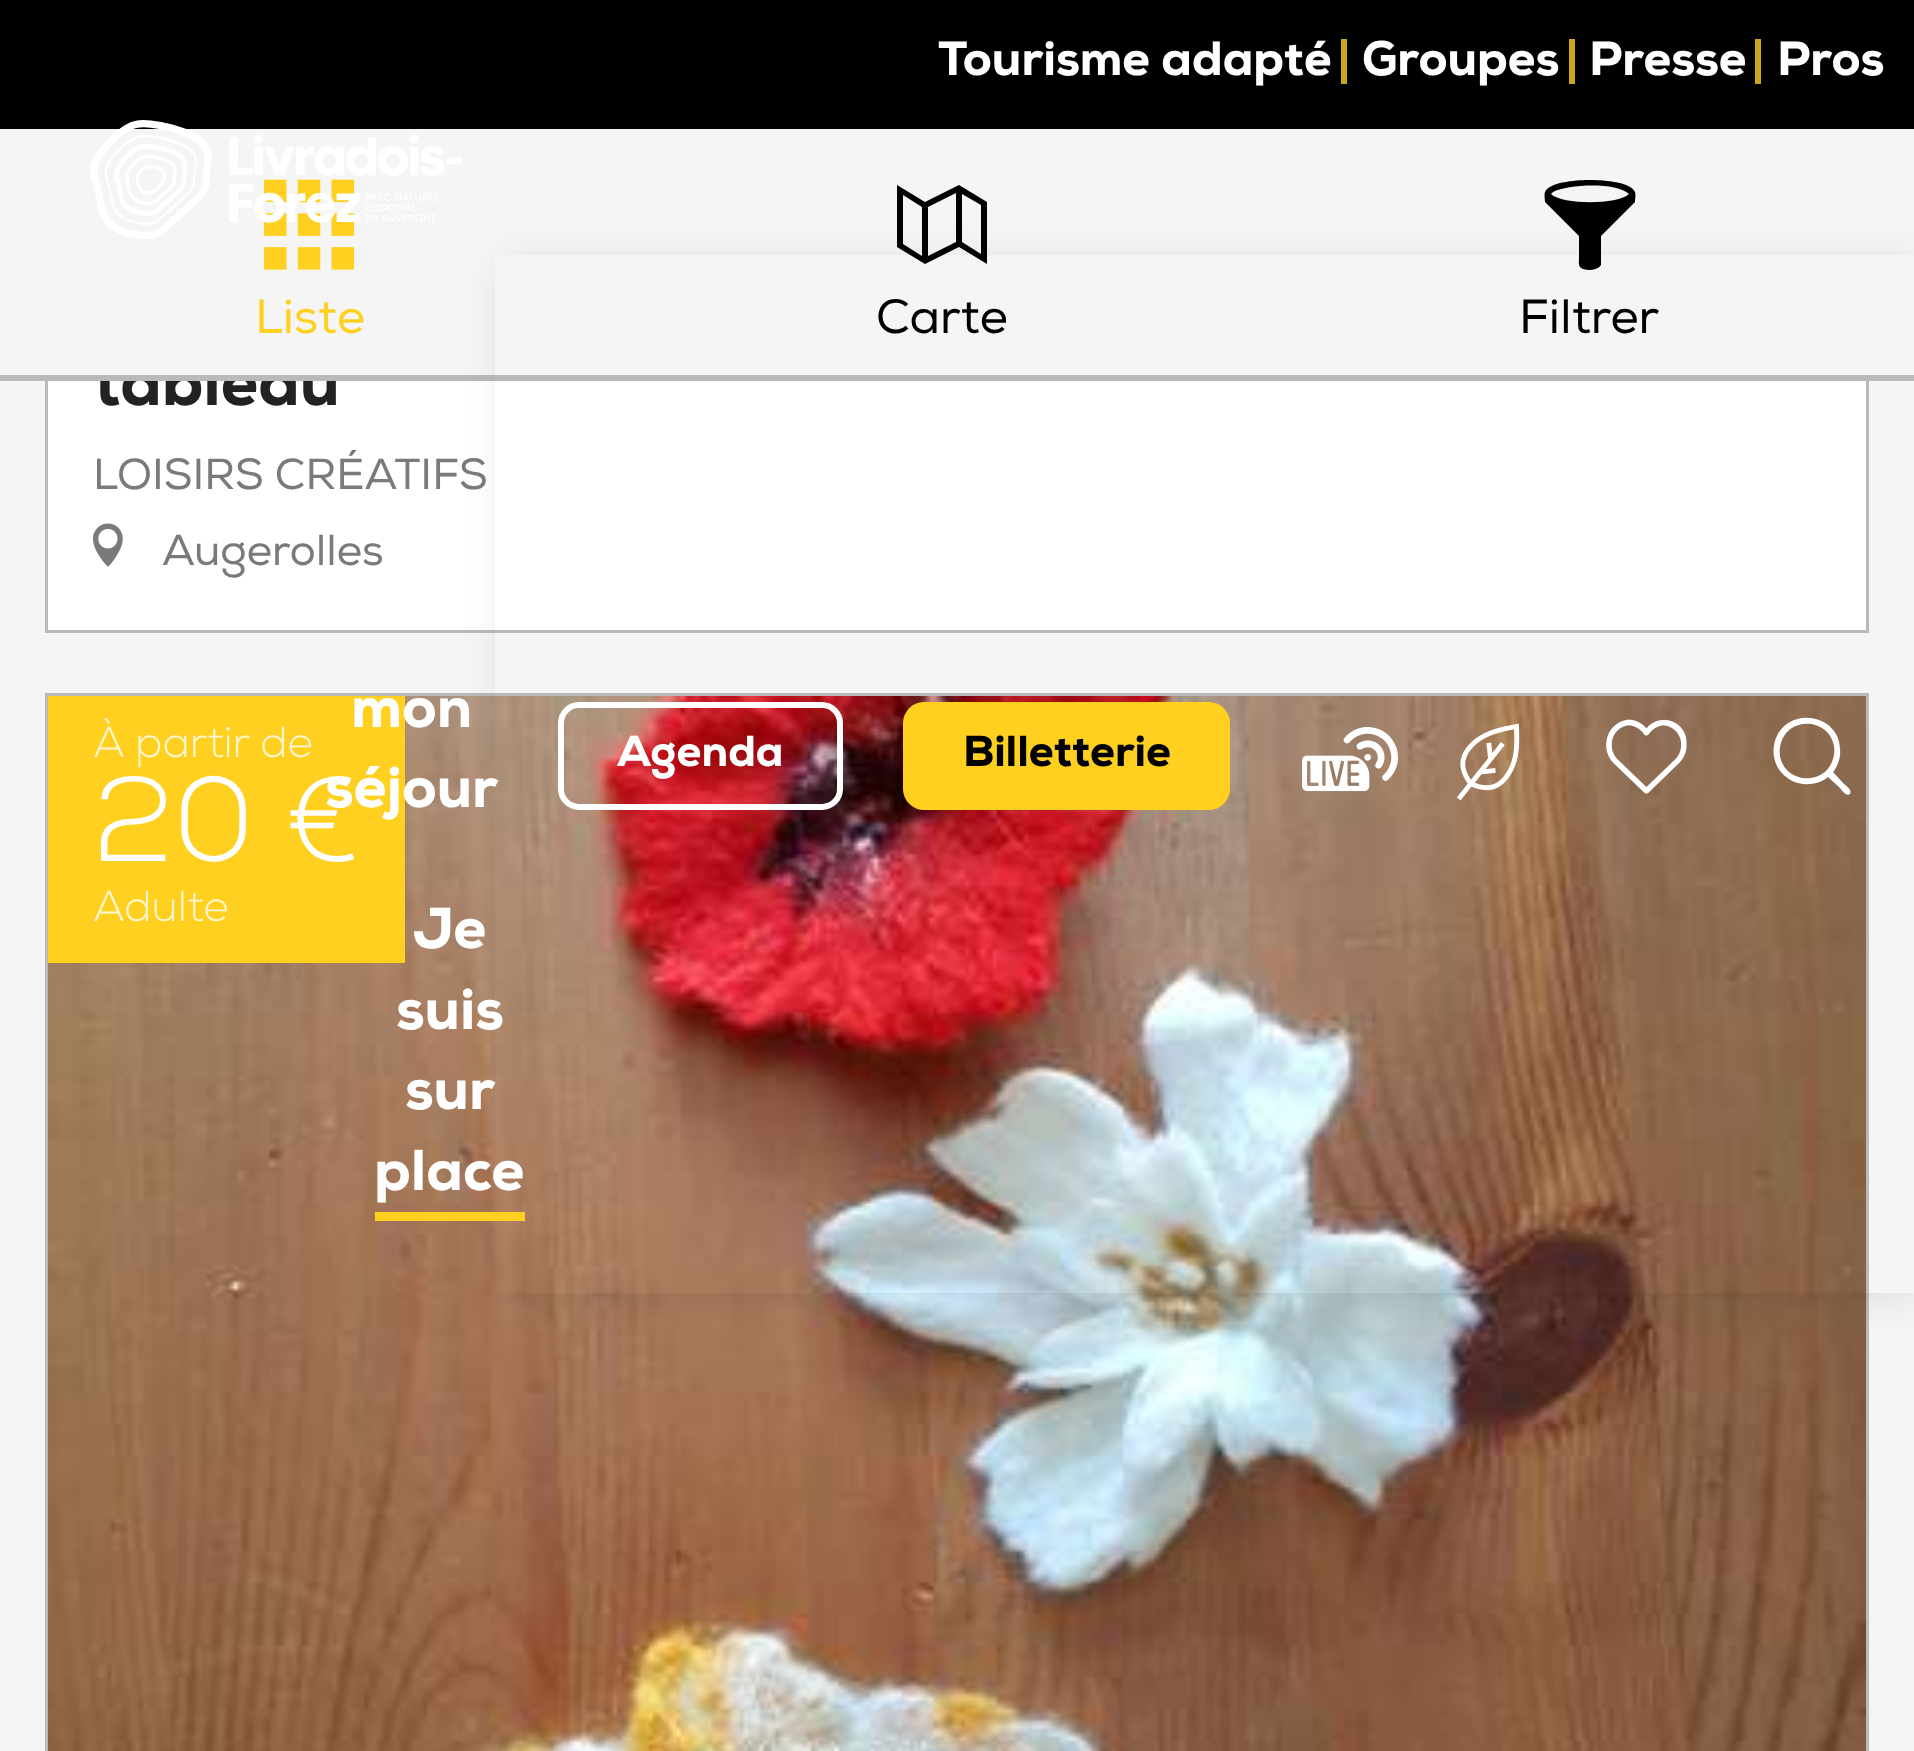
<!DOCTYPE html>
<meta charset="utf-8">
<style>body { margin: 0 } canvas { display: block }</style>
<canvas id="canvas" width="1914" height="1751"></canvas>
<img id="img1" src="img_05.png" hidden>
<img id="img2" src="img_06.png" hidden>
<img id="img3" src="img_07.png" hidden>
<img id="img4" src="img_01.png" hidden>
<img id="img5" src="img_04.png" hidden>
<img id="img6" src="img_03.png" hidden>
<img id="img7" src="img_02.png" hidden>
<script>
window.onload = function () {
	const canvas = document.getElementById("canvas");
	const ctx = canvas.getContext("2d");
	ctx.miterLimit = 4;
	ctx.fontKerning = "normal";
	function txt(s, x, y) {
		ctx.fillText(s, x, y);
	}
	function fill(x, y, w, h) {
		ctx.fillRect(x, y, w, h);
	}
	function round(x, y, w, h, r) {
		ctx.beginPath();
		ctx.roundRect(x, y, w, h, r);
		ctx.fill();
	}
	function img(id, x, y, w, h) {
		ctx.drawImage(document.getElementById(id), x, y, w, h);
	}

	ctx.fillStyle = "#F5F5F5";
	fill(0, 0, 1914, 1751);
	ctx.fillStyle = "#000000";
	fill(0, 0, 1914, 129);
	ctx.fillStyle = "#CCA61A";
	fill(1341, 39, 6, 45);
	fill(1569, 39, 6, 45);
	fill(1755, 39, 6, 45);
	img("img1", 264, 179, 90, 91);
	ctx.fillStyle = "#000000";
	ctx.beginPath();
	ctx.moveTo(959, 185);
	ctx.lineTo(925, 202);
	ctx.lineTo(897, 185);
	ctx.lineTo(897, 247);
	ctx.lineTo(925, 264);
	ctx.lineTo(959, 247);
	ctx.lineTo(987, 264);
	ctx.lineTo(987, 202);
	ctx.closePath();
	ctx.moveTo(928, 207);
	ctx.lineTo(956, 193);
	ctx.lineTo(956, 242);
	ctx.lineTo(928, 256);
	ctx.closePath();
	ctx.moveTo(903, 195);
	ctx.lineTo(922, 207);
	ctx.lineTo(922, 256);
	ctx.lineTo(903, 244);
	ctx.closePath();
	ctx.moveTo(981, 254);
	ctx.lineTo(962, 242);
	ctx.lineTo(962, 194);
	ctx.lineTo(981, 205);
	ctx.closePath();
	ctx.fill();
	ctx.beginPath();
	ctx.moveTo(1590, 180);
	ctx.bezierCurveTo(1581, 180, 1550, 181, 1545, 192);
	ctx.bezierCurveTo(1544, 194, 1545, 199, 1545, 202);
	ctx.lineTo(1579, 236);
	ctx.lineTo(1579, 255);
	ctx.bezierCurveTo(1579, 265, 1577, 269, 1589, 270);
	ctx.bezierCurveTo(1592, 270, 1599, 269, 1601, 265);
	ctx.lineTo(1601, 236);
	ctx.lineTo(1635, 202);
	ctx.bezierCurveTo(1635, 199, 1636, 194, 1635, 192);
	ctx.bezierCurveTo(1630, 181, 1599, 180, 1590, 180);
	ctx.closePath();
	ctx.moveTo(1553, 192);
	ctx.bezierCurveTo(1568, 184, 1617, 182, 1629, 194);
	ctx.bezierCurveTo(1618, 205, 1562, 205, 1551, 194);
	ctx.closePath();
	ctx.fill();
	ctx.fillStyle = "#FFFFFF";
	fill(48, 381, 1818, 249);
	ctx.fillStyle = "#BABABA";
	fill(1866, 381, 3, 252);
	fill(45, 630, 1824, 3);
	fill(45, 381, 3, 252);
	img("img2", 93, 523, 30, 44);
	fill(45, 693, 1824, 3);
	fill(1866, 693, 3, 1058);
	fill(45, 693, 3, 1058);
	img("img3", 48, 696, 1818, 1055);
	ctx.fillStyle = "#FFD020";
	fill(48, 696, 357, 267);
	ctx.font = "900 48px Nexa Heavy";
	ctx.fillStyle = "#FFFFFF";
	txt("Tourisme adapté", 938, 75);
	txt("Groupes", 1362, 75);
	txt("Presse", 1589, 75);
	txt("Pros", 1777, 75);
	ctx.font = "48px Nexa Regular";
	ctx.fillStyle = "#FFD020";
	txt("Liste", 255, 333);
	ctx.fillStyle = "#000000";
	txt("Carte", 876, 333);
	txt("Filtrer", 1519, 333);
	ctx.font = "900 65px Nexa Heavy";
	ctx.fillStyle = "#222222";
	txt("tableau", 93, 405);
	ctx.fillStyle = "#BABABA";
	fill(0, 375, 1914, 6);
	ctx.save();
	ctx.beginPath();
	ctx.moveTo(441, 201);
	ctx.lineTo(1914, 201);
	ctx.lineTo(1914, 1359);
	ctx.lineTo(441, 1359);
	ctx.closePath();
	ctx.moveTo(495, 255);
	ctx.lineTo(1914, 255);
	ctx.lineTo(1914, 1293);
	ctx.lineTo(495, 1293);
	ctx.closePath();
	ctx.clip("evenodd");
	ctx.fillStyle = "rgba(0, 0, 0, 0.09)";
	ctx.filter = "blur(19.5px)";
	ctx.beginPath();
	ctx.rect(501, 261, 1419, 1038);
	ctx.fill();
	ctx.filter = "none";
	ctx.restore();
	img("img4", 90, 120, 372, 119);
	ctx.fillStyle = "#FFD020";
	round(903, 702, 327, 108, 21);
	ctx.font = "900 43.25px Nexa Heavy";
	ctx.fillStyle = "#000000";
	txt("Billetterie", 963, 766);
	ctx.beginPath();
	ctx.roundRect(561, 705, 279, 102, 18);
	ctx.strokeStyle = "#FFFFFF";
	ctx.lineWidth = 6;
	ctx.stroke();
	ctx.fillStyle = "#FFFFFF";
	txt("Agenda", 617, 766);
	ctx.fillStyle = "#FFD020";
	fill(375, 1212, 150, 9);
	img("img5", 1606, 719, 81, 75);
	ctx.font = "900 57.5px Nexa Heavy";
	ctx.fillStyle = "#FFFFFF";
	txt("place", 374, 1190);
	txt("sur", 405, 1109);
	txt("suis", 396, 1029);
	txt("Je", 413, 948);
	txt("mon", 351, 727);
	ctx.beginPath();
	ctx.moveTo(1834, 771);
	ctx.lineTo(1833, 772);
	ctx.lineTo(1844, 784);
	ctx.bezierCurveTo(1845, 785, 1853, 790, 1850, 794);
	ctx.bezierCurveTo(1846, 797, 1841, 789, 1840, 788);
	ctx.lineTo(1828, 777);
	ctx.bezierCurveTo(1813, 789, 1789, 786, 1778, 768);
	ctx.bezierCurveTo(1773, 759, 1772, 748, 1776, 738);
	ctx.bezierCurveTo(1789, 706, 1839, 714, 1840, 749);
	ctx.bezierCurveTo(1841, 757, 1838, 765, 1834, 771);
	ctx.closePath();
	ctx.moveTo(1782, 740);
	ctx.bezierCurveTo(1780, 745, 1779, 751, 1780, 756);
	ctx.bezierCurveTo(1785, 783, 1822, 786, 1832, 762);
	ctx.bezierCurveTo(1834, 757, 1835, 751, 1834, 746);
	ctx.bezierCurveTo(1829, 719, 1792, 716, 1782, 740);
	ctx.closePath();
	ctx.fill();
	img("img6", 1456, 723, 64, 78);
	img("img7", 1302, 727, 96, 65);
	ctx.fillStyle = "#F5F5F5";
	fill(94, 359, 242, 16);
	ctx.font = "43.25px Nexa Regular";
	ctx.fillStyle = "#7A7A7A";
	txt("LOISIRS CRÉATIFS", 93, 489);
	txt("Augerolles", 162, 565);
	ctx.font = "300 43.25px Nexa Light";
	ctx.fillStyle = "#FFF6D2";
	txt("À partir de", 93, 757);
	ctx.font = "300 120px Nexa Light";
	ctx.fillStyle = "#FFFFFF";
	txt("20 €", 93, 861);
	ctx.font = "900 57.5px Nexa Heavy";
	txt("séjour", 325, 807);
	ctx.font = "300 43.25px Nexa Light";
	ctx.fillStyle = "#FFF6D2";
	txt("Adulte", 93, 921);
};
</script>
